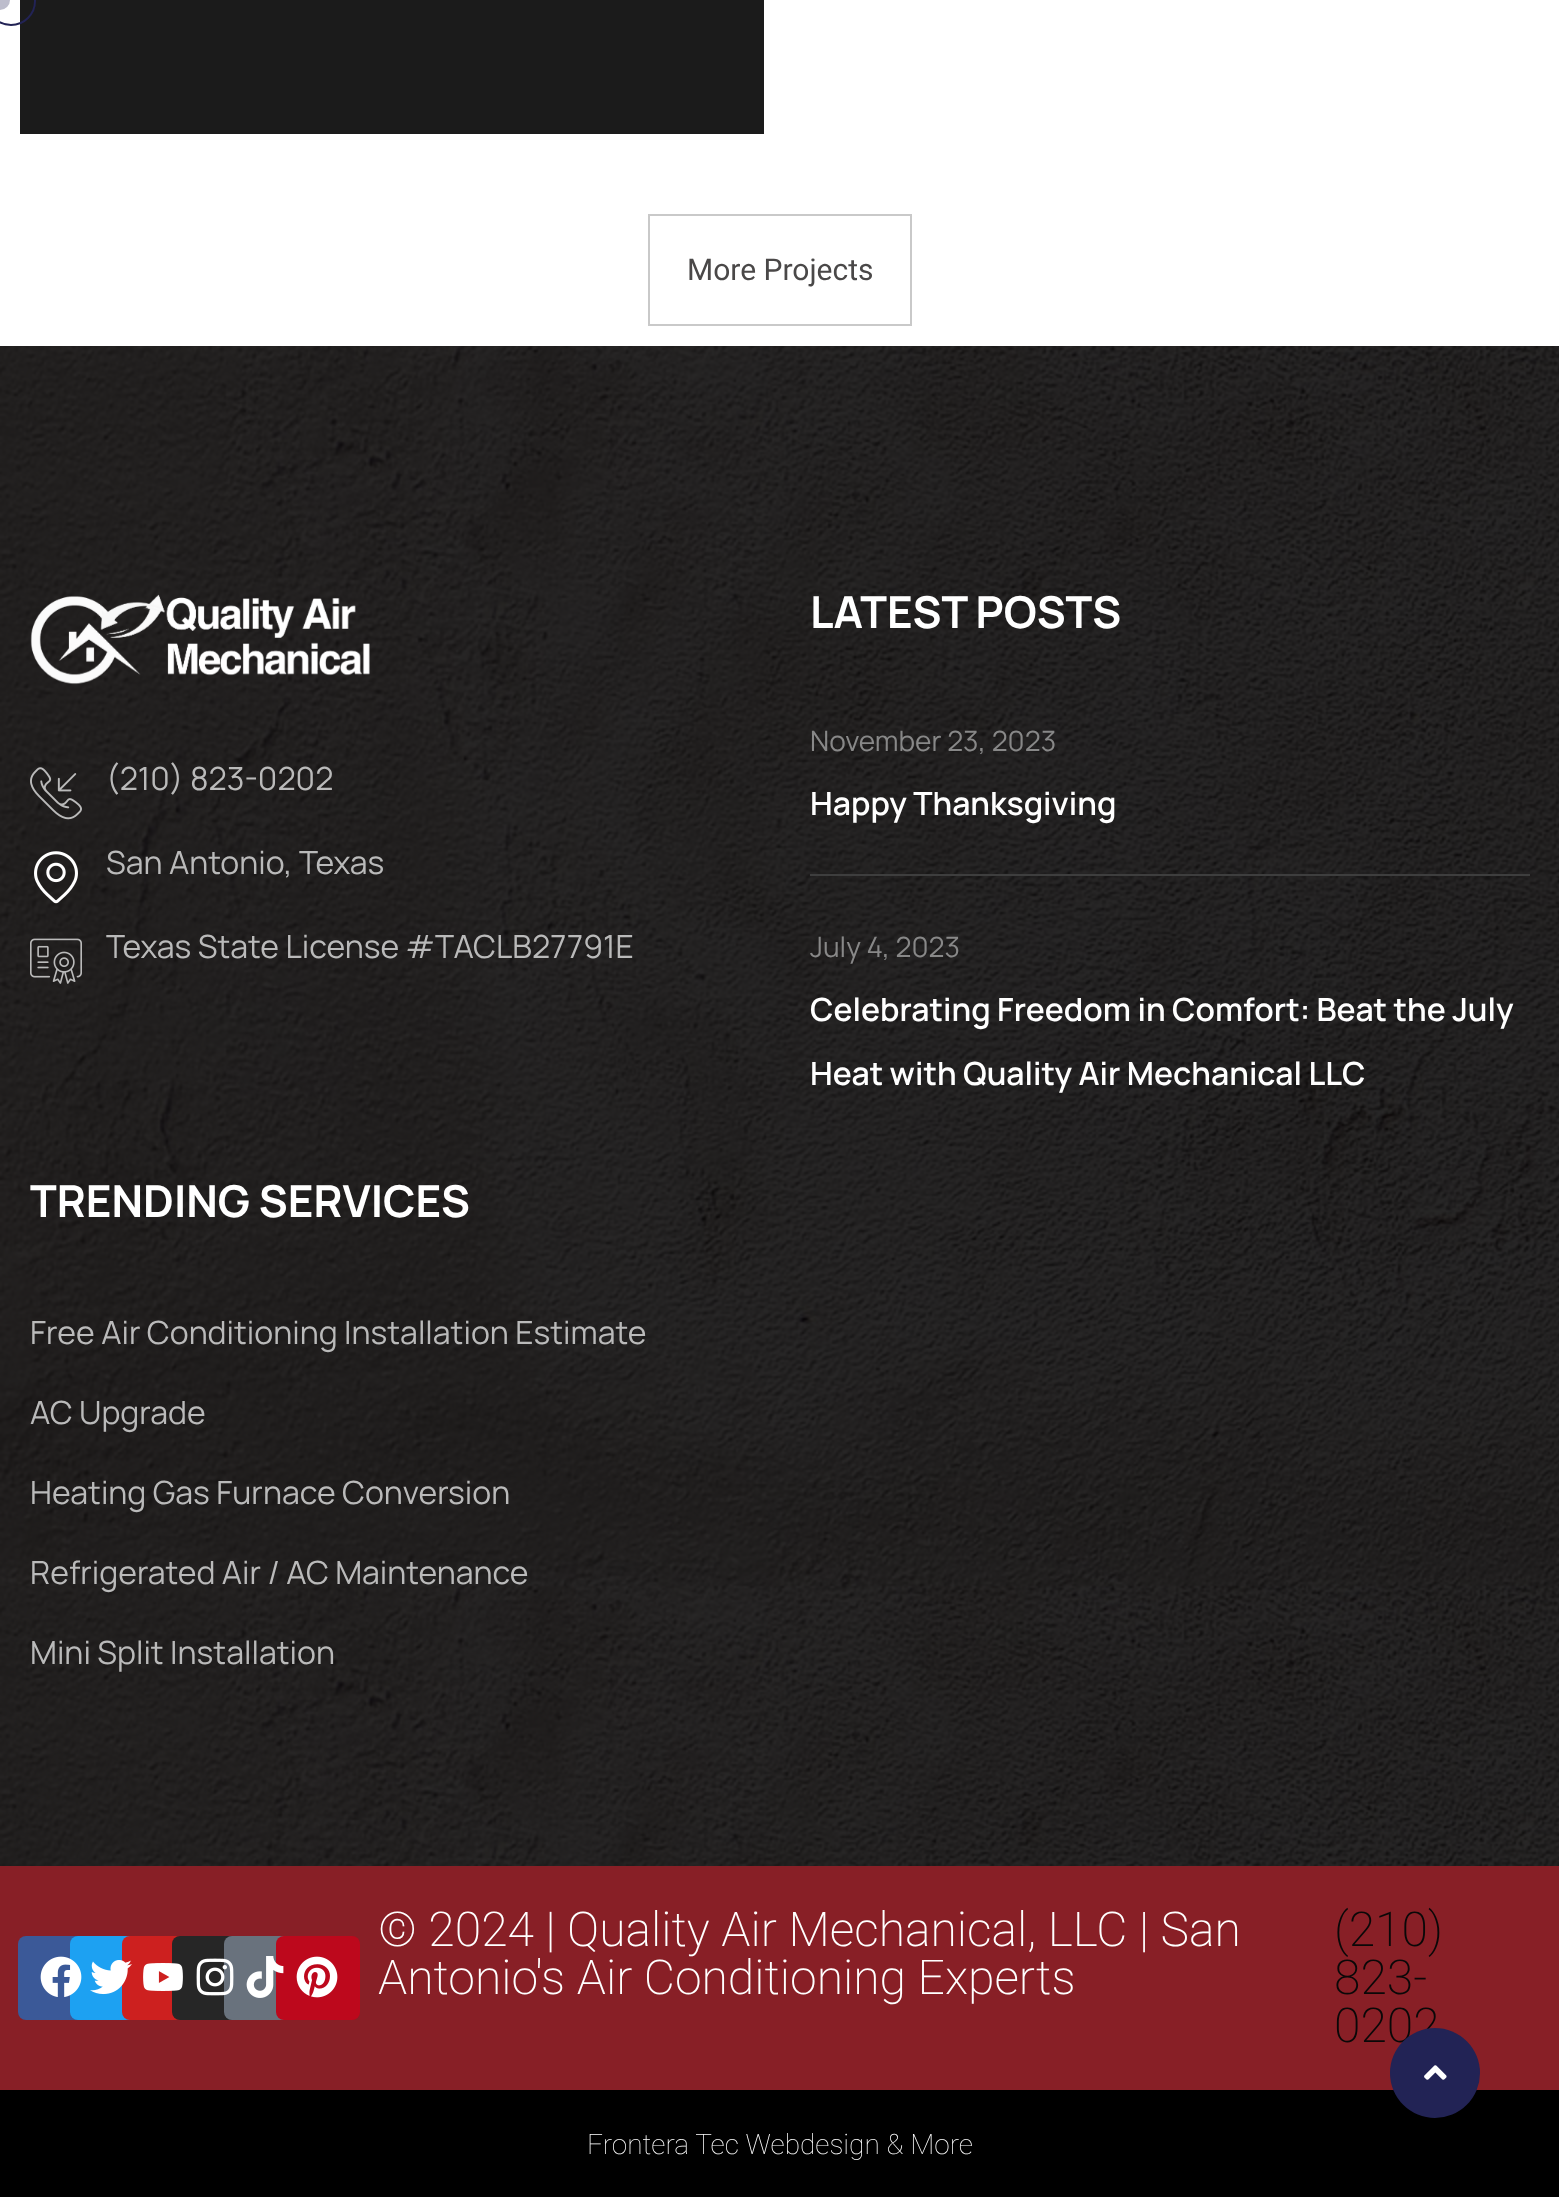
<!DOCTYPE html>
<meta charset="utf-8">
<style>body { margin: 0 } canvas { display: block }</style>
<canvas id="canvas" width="1559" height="2197"></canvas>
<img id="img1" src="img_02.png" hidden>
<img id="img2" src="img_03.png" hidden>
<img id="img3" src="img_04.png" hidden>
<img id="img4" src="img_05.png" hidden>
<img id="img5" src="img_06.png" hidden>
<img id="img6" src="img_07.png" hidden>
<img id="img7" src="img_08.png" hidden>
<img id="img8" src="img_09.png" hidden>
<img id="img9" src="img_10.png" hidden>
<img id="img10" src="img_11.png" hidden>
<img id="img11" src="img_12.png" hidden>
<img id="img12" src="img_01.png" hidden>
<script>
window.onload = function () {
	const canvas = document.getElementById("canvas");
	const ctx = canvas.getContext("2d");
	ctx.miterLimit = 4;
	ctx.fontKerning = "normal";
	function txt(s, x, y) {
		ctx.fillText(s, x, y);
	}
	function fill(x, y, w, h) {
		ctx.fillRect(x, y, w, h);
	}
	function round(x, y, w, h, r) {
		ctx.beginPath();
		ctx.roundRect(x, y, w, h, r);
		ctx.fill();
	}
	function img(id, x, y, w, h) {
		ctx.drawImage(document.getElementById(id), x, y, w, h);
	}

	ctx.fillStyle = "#FFFFFF";
	fill(0, 0, 1559, 2197);
	ctx.fillStyle = "#1B1B1B";
	fill(20, 0, 744, 134);
	ctx.beginPath();
	ctx.arc(11, 1, 24, 0, Math.PI * 2);
	ctx.strokeStyle = "#222355";
	ctx.lineWidth = 2;
	ctx.stroke();
	ctx.fillStyle = "#BDBDCC";
	ctx.beginPath();
	ctx.arc(0, 0, 10, 0, Math.PI * 2);
	ctx.fill();
	ctx.strokeStyle = "#C9C9C9";
	ctx.strokeRect(649, 215, 262, 110);
	img("img1", 0, 346, 1559, 1520);
	img("img2", 30, 594, 340, 91);
	img("img3", 30, 767, 52, 53);
	img("img4", 34, 851, 44, 53);
	img("img5", 30, 938, 52, 46);
	ctx.fillStyle = "#3E3E3E";
	fill(810, 874, 720, 2);
	ctx.fillStyle = "#881F26";
	fill(0, 1866, 1559, 224);
	ctx.fillStyle = "#3B5998";
	round(18, 1936, 84, 84, 8);
	ctx.fillStyle = "#1DA1F2";
	round(70, 1936, 84, 84, 8);
	img("img6", 40, 1956, 42, 41);
	ctx.fillStyle = "#CD201F";
	round(122, 1936, 84, 84, 8);
	img("img7", 90, 1960, 42, 35);
	ctx.fillStyle = "#262626";
	round(172, 1936, 84, 84, 8);
	img("img8", 143, 1963, 40, 28);
	ctx.fillStyle = "#69727D";
	round(224, 1936, 84, 84, 8);
	img("img9", 196, 1958, 38, 38);
	ctx.fillStyle = "#BD081C";
	round(276, 1936, 84, 84, 8);
	img("img10", 246, 1956, 38, 42);
	img("img11", 296, 1956, 42, 42);
	ctx.fillStyle = "#000000";
	fill(0, 2090, 1559, 107);
	ctx.font = "30px Roboto";
	ctx.fillStyle = "#4A4848";
	txt("More Projects", 687, 280);
	ctx.font = "32px Manrope";
	ctx.fillStyle = "#BABABA";
	txt("(210) 823-0202", 106, 790);
	txt("San Antonio, Texas", 106, 874);
	txt("Texas State License #TACLB27791E", 106, 958);
	ctx.font = "bold 44px Manrope";
	ctx.fillStyle = "#FFFFFF";
	txt("LATEST POSTS", 810, 628);
	ctx.font = "28px Manrope";
	ctx.fillStyle = "#888888";
	txt("November 23, 2023", 810, 751);
	ctx.font = "600 32px Manrope";
	ctx.fillStyle = "#FFFFFF";
	txt("Happy Thanksgiving", 810, 815);
	ctx.font = "28px Manrope";
	ctx.fillStyle = "#888888";
	txt("July 4, 2023", 810, 957);
	ctx.font = "600 32px Manrope";
	ctx.fillStyle = "#FFFFFF";
	txt("Celebrating Freedom in Comfort: Beat the July", 810, 1021);
	txt("Heat with Quality Air Mechanical LLC", 810, 1085);
	ctx.font = "bold 44px Manrope";
	txt("TRENDING SERVICES", 30, 1217);
	ctx.font = "32px Manrope";
	ctx.fillStyle = "#BABABA";
	txt("Free Air Conditioning Installation Estimate", 30, 1344);
	txt("AC Upgrade", 30, 1424);
	txt("Heating Gas Furnace Conversion", 30, 1504);
	txt("Refrigerated Air / AC Maintenance", 30, 1584);
	txt("Mini Split Installation", 30, 1664);
	ctx.font = "200 48px Roboto";
	ctx.fillStyle = "#FFFFFF";
	txt("© 2024 | Quality Air Mechanical, LLC | San", 378, 1946);
	txt("Antonio's Air Conditioning Experts", 378, 1994);
	ctx.fillStyle = "#090808";
	txt("(210)", 1334, 1946);
	txt("823-", 1334, 1994);
	txt("0202", 1334, 2042);
	ctx.fillStyle = "#222355";
	ctx.beginPath();
	ctx.arc(1435, 2073, 45, 0, Math.PI * 2);
	ctx.fill();
	img("img12", 1424, 2065, 23, 15);
	ctx.font = "100 28px Roboto";
	ctx.fillStyle = "#FFFFFF";
	txt("Frontera Tec Webdesign & More", 587, 2154);
};
</script>
